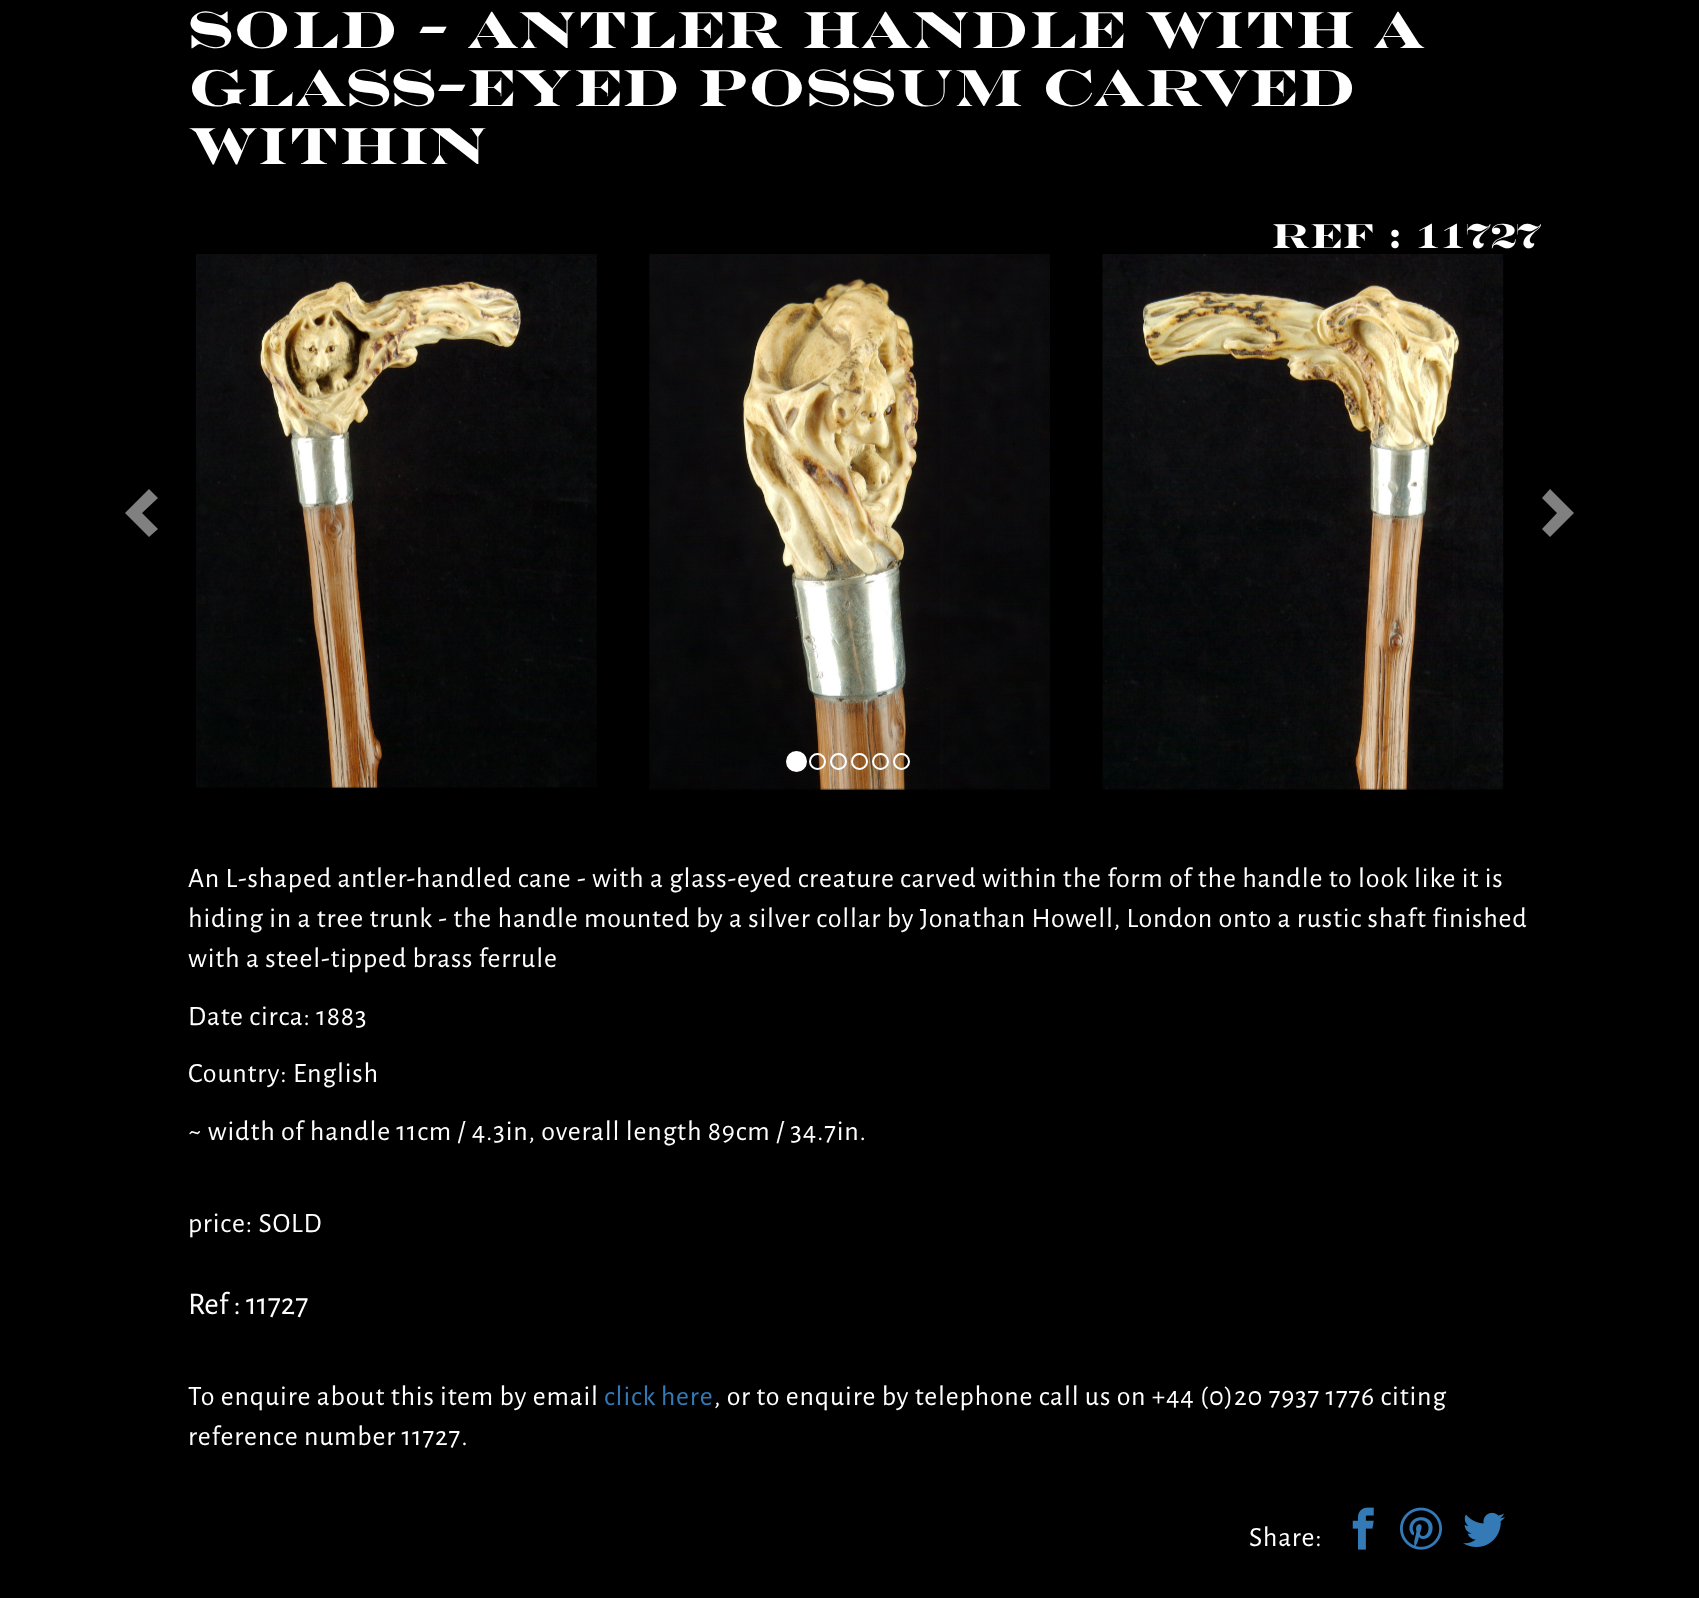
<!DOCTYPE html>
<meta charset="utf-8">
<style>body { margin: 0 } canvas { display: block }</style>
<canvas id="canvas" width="1699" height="1598"></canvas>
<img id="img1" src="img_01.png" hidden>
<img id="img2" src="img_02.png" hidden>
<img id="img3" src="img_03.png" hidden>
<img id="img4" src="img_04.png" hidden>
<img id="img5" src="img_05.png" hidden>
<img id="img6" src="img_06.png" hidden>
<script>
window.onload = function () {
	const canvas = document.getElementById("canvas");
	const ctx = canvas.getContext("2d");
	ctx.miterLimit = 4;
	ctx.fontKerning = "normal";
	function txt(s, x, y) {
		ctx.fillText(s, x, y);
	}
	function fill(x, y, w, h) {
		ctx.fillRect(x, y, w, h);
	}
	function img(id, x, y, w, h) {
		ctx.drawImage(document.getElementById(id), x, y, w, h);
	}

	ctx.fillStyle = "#000000";
	fill(0, 0, 1699, 1598);
	ctx.fillStyle = "#808080";
	ctx.beginPath();
	ctx.moveTo(158, 498);
	ctx.lineTo(142, 513);
	ctx.lineTo(158, 529);
	ctx.lineTo(149, 537);
	ctx.lineTo(125, 513);
	ctx.lineTo(149, 489);
	ctx.closePath();
	ctx.fill();
	img("img1", 196, 254, 401, 534);
	img("img2", 649, 254, 401, 536);
	img("img3", 1102, 254, 402, 536);
	ctx.beginPath();
	ctx.moveTo(1574, 513);
	ctx.lineTo(1550, 537);
	ctx.lineTo(1542, 529);
	ctx.lineTo(1557, 513);
	ctx.lineTo(1542, 498);
	ctx.lineTo(1550, 489);
	ctx.closePath();
	ctx.fill();
	ctx.fillStyle = "#FFFFFF";
	ctx.beginPath();
	ctx.arc(796.5, 761.5, 9.5, 0, Math.PI * 2);
	ctx.fill();
	ctx.strokeStyle = "#FFFFFF";
	ctx.lineWidth = 2;
	ctx.stroke();
	ctx.beginPath();
	ctx.arc(817.5, 761.5, 7.5, 0, Math.PI * 2);
	ctx.stroke();
	ctx.beginPath();
	ctx.arc(838.5, 761.5, 7.5, 0, Math.PI * 2);
	ctx.stroke();
	ctx.beginPath();
	ctx.arc(859.5, 761.5, 7.5, 0, Math.PI * 2);
	ctx.stroke();
	ctx.beginPath();
	ctx.arc(880.5, 761.5, 7.5, 0, Math.PI * 2);
	ctx.stroke();
	ctx.beginPath();
	ctx.arc(901.5, 761.5, 7.5, 0, Math.PI * 2);
	ctx.stroke();
	img("img4", 1352, 1507, 22, 43);
	img("img5", 1400, 1507, 42, 43);
	img("img6", 1463, 1512, 42, 35);
	ctx.font = "bold 52.5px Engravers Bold";
	txt("SOLD - antler handle with a", 188, 48);
	txt("glass-eyed possum carved", 188, 106);
	txt("within", 188, 164);
	ctx.font = "bold 35px Engravers Bold";
	txt("Ref : 11727", 1271, 248);
	ctx.letterSpacing = "0.84px";
	ctx.font = "28px Alegreya Sans";
	txt("An L-shaped antler-handled cane - with a glass-eyed creature carved within the form of the handle to look like it is", 188, 887);
	txt("hiding in a tree trunk - the handle mounted by a silver collar by Jonathan Howell, London onto a rustic shaft finished", 188, 927);
	txt("with a steel-tipped brass ferrule", 188, 967);
	txt("Date circa: 1883", 188, 1025);
	txt("Country: English", 188, 1082);
	txt("~ width of handle 11cm / 4.3in, overall length 89cm / 34.7in.", 188, 1140);
	txt("price: SOLD", 188, 1232);
	ctx.letterSpacing = "0px";
	ctx.font = "31.5px Alegreya Sans";
	txt("Ref : 11727", 188, 1314);
	ctx.letterSpacing = "0.84px";
	ctx.font = "28px Alegreya Sans";
	txt("To enquire about this item by email", 188, 1405);
	ctx.wordSpacing = "-1px";
	ctx.fillStyle = "#337AB7";
	txt("click here", 604, 1405);
	ctx.wordSpacing = "0px";
	ctx.fillStyle = "#FFFFFF";
	txt(", or to enquire by telephone call us on +44 (0)20 7937 1776 citing", 714, 1405);
	txt("reference number 11727.", 188, 1445);
	txt("Share:", 1249, 1546);
};
</script>
